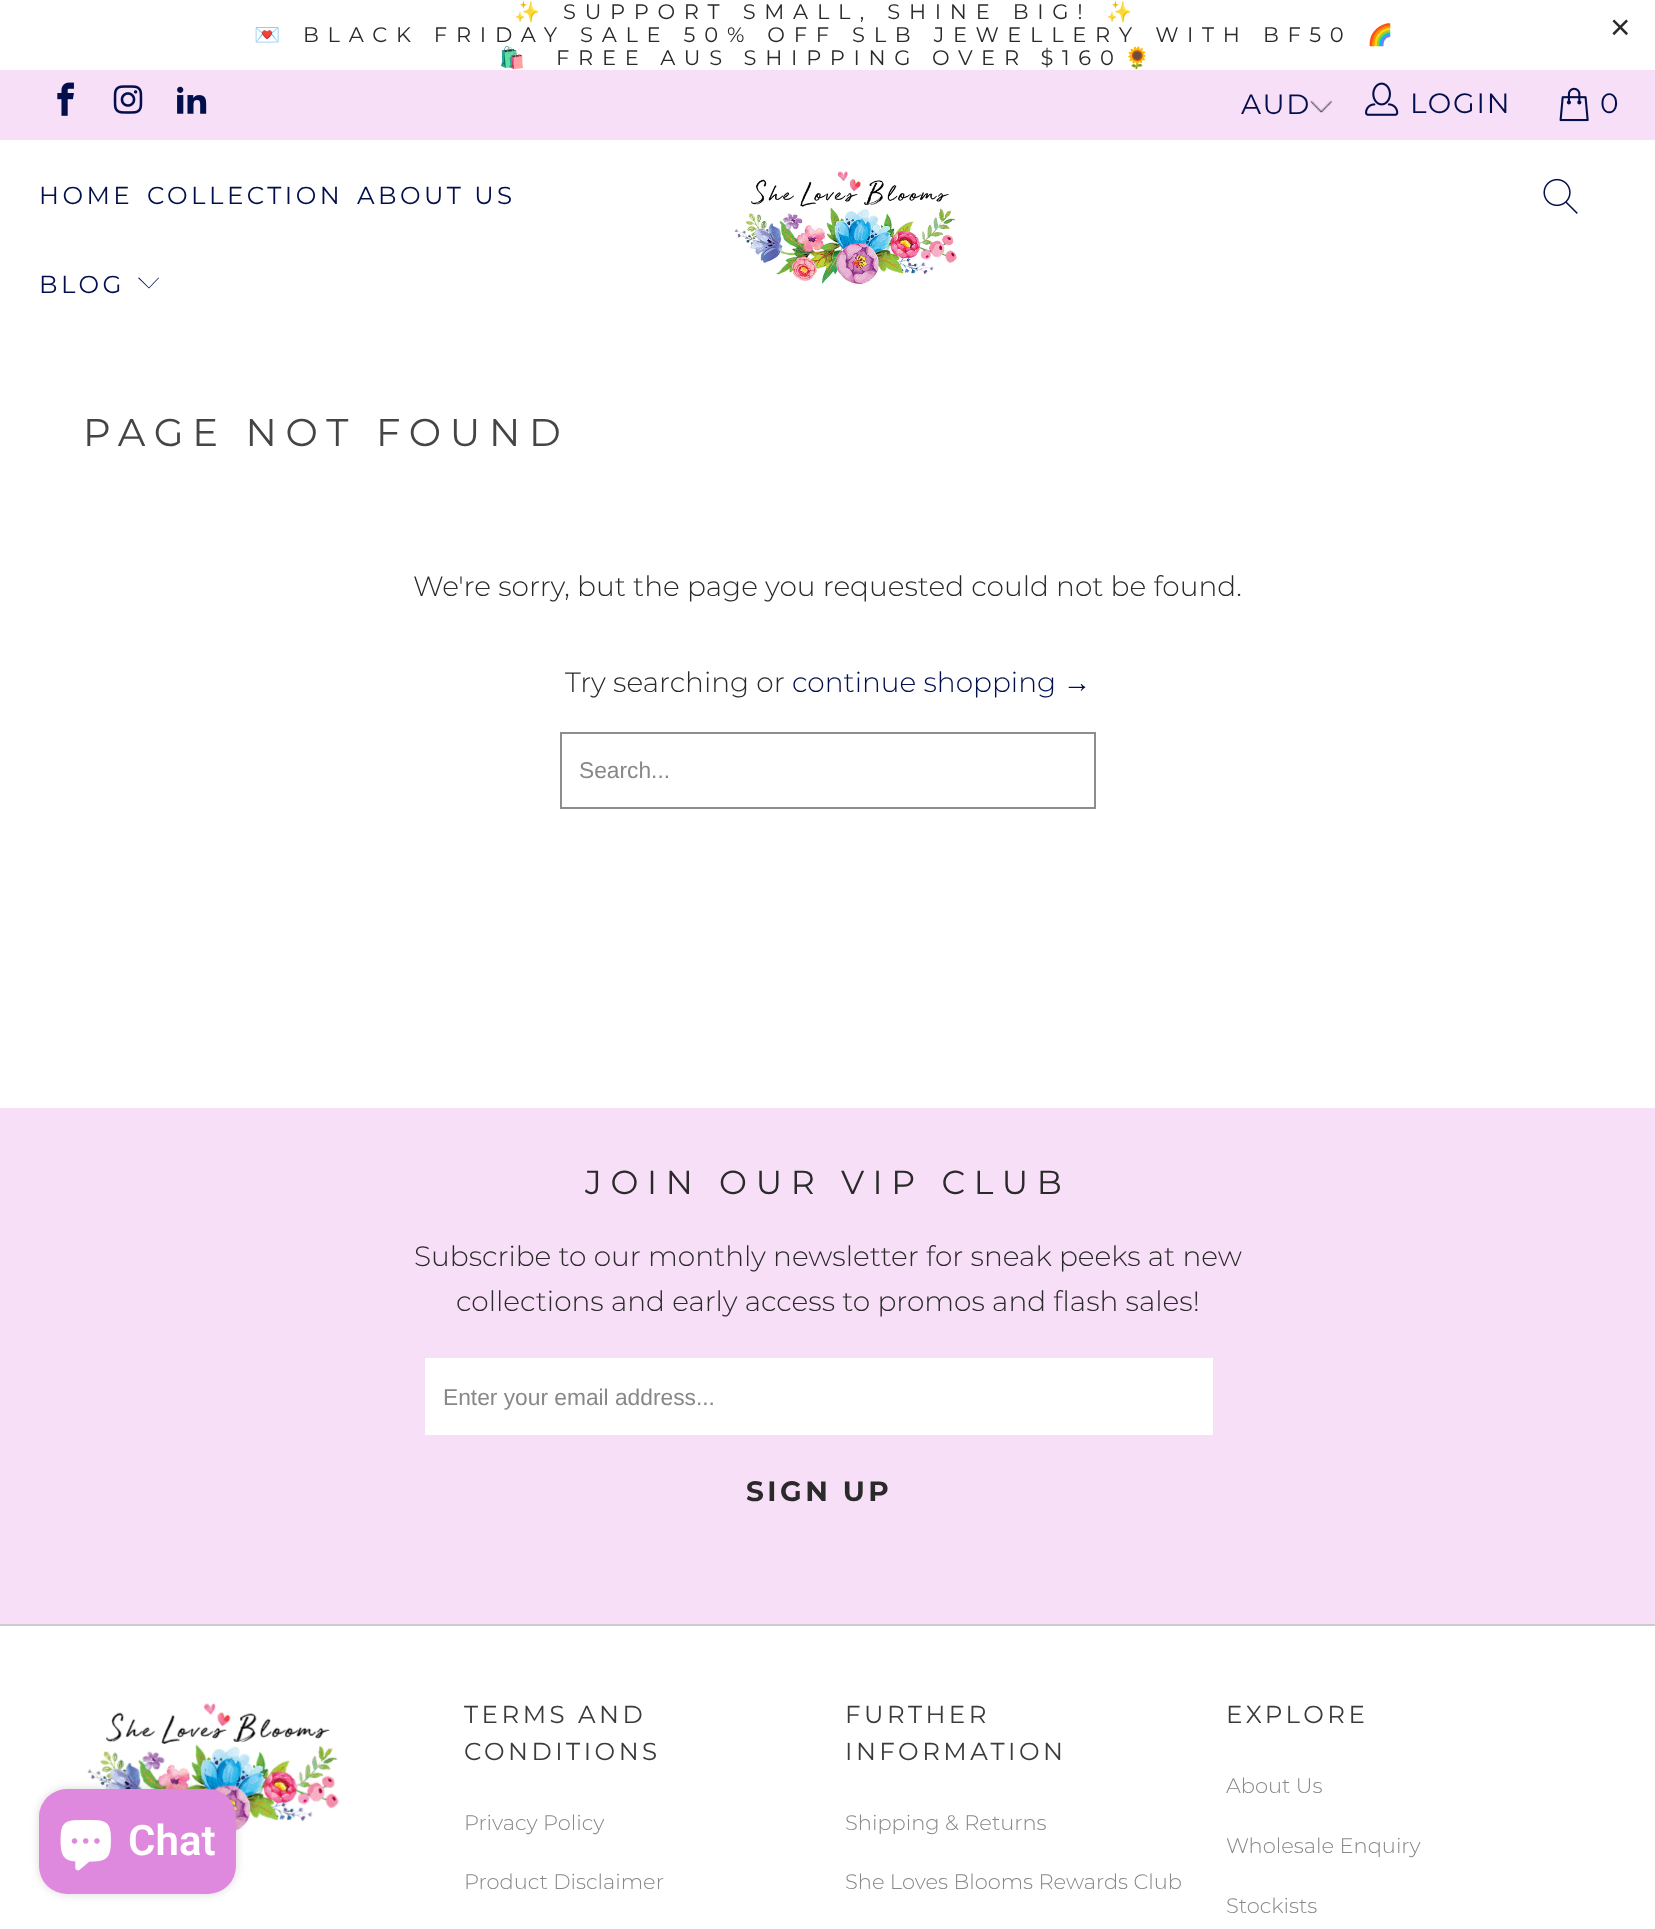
<!DOCTYPE html>
<meta charset="utf-8">
<style>body { margin: 0 } canvas { display: block }</style>
<canvas id="canvas" width="1655" height="1929"></canvas>
<img id="img1" src="img_01.png" hidden>
<img id="img2" src="img_02.png" hidden>
<img id="img3" src="img_03.png" hidden>
<img id="img4" src="img_04.png" hidden>
<img id="img5" src="img_05.png" hidden>
<img id="img6" src="img_06.png" hidden>
<img id="img7" src="img_07.png" hidden>
<img id="img8" src="img_08.png" hidden>
<img id="img9" src="img_10.png" hidden>
<img id="img10" src="img_09.png" hidden>
<script>
window.onload = function () {
	const canvas = document.getElementById("canvas");
	const ctx = canvas.getContext("2d");
	ctx.miterLimit = 4;
	ctx.fontKerning = "normal";
	function txt(s, x, y) {
		ctx.fillText(s, x, y);
	}
	function fill(x, y, w, h) {
		ctx.fillRect(x, y, w, h);
	}
	function round(x, y, w, h, r) {
		ctx.beginPath();
		ctx.roundRect(x, y, w, h, r);
		ctx.fill();
	}
	function img(id, x, y, w, h) {
		ctx.drawImage(document.getElementById(id), x, y, w, h);
	}

	ctx.fillStyle = "#FFFFFF";
	fill(0, 0, 1655, 1929);
	ctx.fillStyle = "#F7DFF7";
	fill(0, 70, 1655, 70);
	img("img1", 57, 82, 17, 34);
	img("img2", 113, 85, 30, 29);
	img("img3", 177, 86, 30, 28);
	img("img4", 1310, 100, 22, 13);
	img("img5", 1365, 82, 34, 34);
	img("img6", 1559, 87, 30, 35);
	ctx.fillStyle = "#020F4C";
	ctx.beginPath();
	ctx.moveTo(149, 288.5);
	ctx.lineTo(138, 278);
	ctx.lineTo(139, 277.5);
	ctx.lineTo(149, 287.5);
	ctx.lineTo(158.5, 277.5);
	ctx.lineTo(159, 278);
	ctx.closePath();
	ctx.fill();
	img("img7", 734, 171, 223, 114);
	img("img8", 1543, 178, 35, 36);
	ctx.strokeStyle = "#8D8D8D";
	ctx.lineWidth = 2;
	ctx.strokeRect(561, 733, 534, 75);
	ctx.fillStyle = "#F7DFF7";
	fill(0, 1108, 1655, 516);
	ctx.fillStyle = "#FFFFFF";
	fill(425, 1358, 788, 77);
	img("img9", 87, 1703, 253, 128);
	ctx.fillStyle = "rgba(0, 0, 0, 0.15)";
	ctx.filter = "blur(4.5px)";
	ctx.beginPath();
	ctx.roundRect(39, 1789, 197, 105, 28);
	ctx.fill();
	ctx.filter = "none";
	ctx.fillStyle = "#DE88DE";
	round(39, 1789, 197, 105, 28);
	img("img10", 60, 1820, 51, 51);
	ctx.fillStyle = "#CCCCCC";
	fill(0, 1624, 1655, 2);
	ctx.letterSpacing = "8.75px";
	ctx.font = "21px Noto Color Emoji";
	ctx.fillStyle = "#2B2A2A";
	txt("✨", 514, 19);
	ctx.font = "21px Montserrat";
	txt("SUPPORT SMALL, SHINE BIG!", 563, 19);
	ctx.font = "21px Noto Color Emoji";
	txt("✨", 1106, 19);
	txt("💌", 254, 42);
	ctx.font = "21px Montserrat";
	txt("BLACK FRIDAY SALE 50% OFF SLB JEWELLERY WITH BF50", 303, 42);
	ctx.font = "21px Noto Color Emoji";
	txt("🌈", 1367, 42);
	txt("🛍️", 499, 65);
	ctx.wordSpacing = "-1.5px";
	ctx.font = "21px Montserrat";
	txt("FREE AUS SHIPPING OVER $160", 556, 65);
	ctx.wordSpacing = "0px";
	ctx.font = "21px Noto Color Emoji";
	txt("🌻", 1124, 65);
	ctx.font = "35px Liberation Sans";
	txt("×", 1610, 39);
	ctx.letterSpacing = "1.75px";
	ctx.font = "28px Montserrat";
	ctx.fillStyle = "#020F4C";
	txt("AUD", 1241, 114);
	txt("LOGIN", 1410, 113);
	txt("0", 1600, 113);
	ctx.letterSpacing = "3.5px";
	ctx.font = "24.5px Montserrat";
	txt("HOME", 39, 204);
	txt("COLLECTION", 147, 204);
	txt("ABOUT US", 357, 204);
	txt("BLOG", 39, 293);
	ctx.letterSpacing = "8.75px";
	ctx.font = "38.5px Montserrat";
	ctx.fillStyle = "#454545";
	txt("PAGE NOT FOUND", 83, 446);
	ctx.letterSpacing = "0px";
	ctx.font = "300 28px Montserrat";
	ctx.fillStyle = "#2B2A2A";
	txt("We're sorry, but the page you requested could not be found.", 413, 596);
	txt("Try searching or", 565, 692);
	ctx.fillStyle = "#020F4C";
	txt("continue shopping", 792, 692);
	ctx.font = "28px Liberation Sans";
	txt("→", 1063, 692);
	ctx.font = "22.75px Liberation Sans";
	ctx.fillStyle = "#888888";
	txt("Search...", 579, 778);
	ctx.letterSpacing = "8.75px";
	ctx.font = "33.25px Montserrat";
	ctx.fillStyle = "#2B2A2A";
	txt("JOIN OUR VIP CLUB", 585, 1194);
	ctx.letterSpacing = "0px";
	ctx.font = "300 28px Montserrat";
	txt("Subscribe to our monthly newsletter for sneak peeks at new", 414, 1266);
	txt("collections and early access to promos and flash sales!", 456, 1311);
	ctx.font = "22.75px Liberation Sans";
	ctx.fillStyle = "#888888";
	txt("Enter your email address...", 443, 1405);
	ctx.letterSpacing = "3.5px";
	ctx.font = "bold 28px Montserrat";
	ctx.fillStyle = "#2B2A2A";
	txt("SIGN UP", 746, 1501);
	ctx.letterSpacing = "0px";
	ctx.font = "600 42px Roboto";
	ctx.fillStyle = "#FFFFFF";
	txt("Chat", 128, 1855);
	ctx.letterSpacing = "3.5px";
	ctx.font = "24.5px Montserrat";
	ctx.fillStyle = "#3B3B3B";
	txt("TERMS AND", 464, 1723);
	txt("CONDITIONS", 464, 1760);
	ctx.letterSpacing = "0px";
	ctx.font = "300 21px Montserrat";
	ctx.fillStyle = "#888888";
	txt("Privacy Policy", 464, 1830);
	txt("Product Disclaimer", 464, 1889);
	ctx.letterSpacing = "3.5px";
	ctx.font = "24.5px Montserrat";
	ctx.fillStyle = "#3B3B3B";
	txt("FURTHER", 845, 1723);
	txt("INFORMATION", 845, 1760);
	ctx.letterSpacing = "0px";
	ctx.font = "300 21px Montserrat";
	ctx.fillStyle = "#888888";
	txt("Shipping & Returns", 845, 1830);
	txt("She Loves Blooms Rewards Club", 845, 1889);
	ctx.letterSpacing = "3.5px";
	ctx.font = "24.5px Montserrat";
	ctx.fillStyle = "#3B3B3B";
	txt("EXPLORE", 1226, 1723);
	ctx.letterSpacing = "0px";
	ctx.font = "300 21px Montserrat";
	ctx.fillStyle = "#888888";
	txt("About Us", 1226, 1793);
	txt("Wholesale Enquiry", 1226, 1853);
	txt("Stockists", 1226, 1913);
};
</script>
